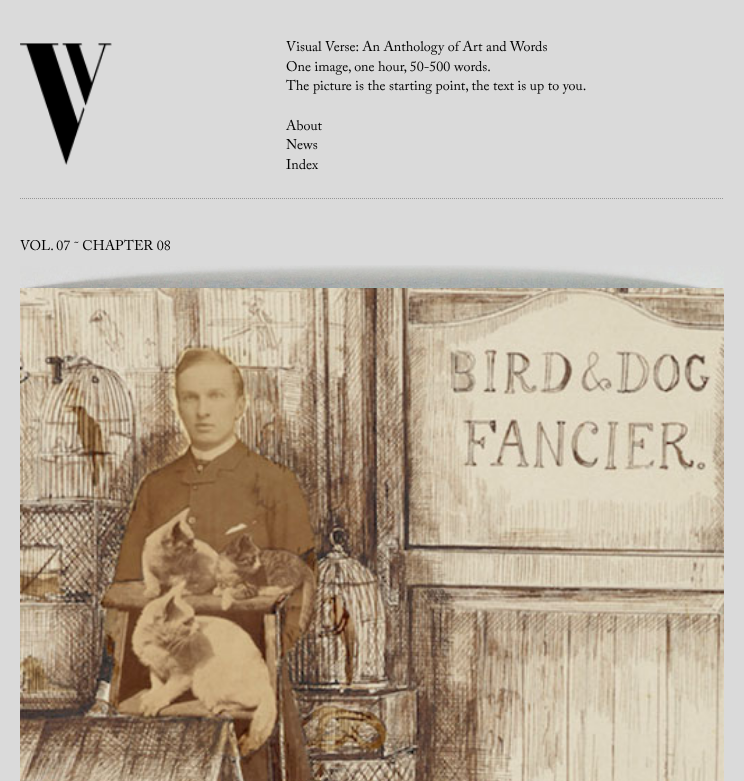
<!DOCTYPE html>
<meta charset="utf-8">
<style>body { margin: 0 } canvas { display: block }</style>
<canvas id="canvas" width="744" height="781"></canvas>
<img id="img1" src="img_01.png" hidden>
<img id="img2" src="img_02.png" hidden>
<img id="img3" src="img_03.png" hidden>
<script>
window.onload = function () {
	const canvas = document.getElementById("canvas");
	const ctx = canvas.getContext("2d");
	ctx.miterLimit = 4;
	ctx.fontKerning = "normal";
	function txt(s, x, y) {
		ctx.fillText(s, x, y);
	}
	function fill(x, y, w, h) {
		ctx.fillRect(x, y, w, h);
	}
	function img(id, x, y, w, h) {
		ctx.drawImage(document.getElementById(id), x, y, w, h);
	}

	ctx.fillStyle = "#DADADA";
	fill(0, 0, 744, 781);
	ctx.beginPath();
	ctx.moveTo(20, 198.5);
	ctx.lineTo(724, 198.5);
	ctx.strokeStyle = "#959595";
	ctx.setLineDash([1, 1]);
	ctx.stroke();
	img("img1", 20, 43, 92, 122);
	img("img2", 20, 265, 704, 23);
	img("img3", 20, 288, 704, 493);
	ctx.font = "14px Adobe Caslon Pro";
	ctx.fillStyle = "#000000";
	txt("Visual Verse: An Anthology of Art and Words", 286, 51);
	txt("One image, one hour, 50-500 words.", 286, 71);
	txt("The picture is the starting point, the text is up to you.", 286, 90);
	txt("About", 286, 130);
	txt("News", 286, 149);
	txt("Index", 286, 169);
	txt("VOL. 07 ˜ CHAPTER 08", 20, 250);
};
</script>
